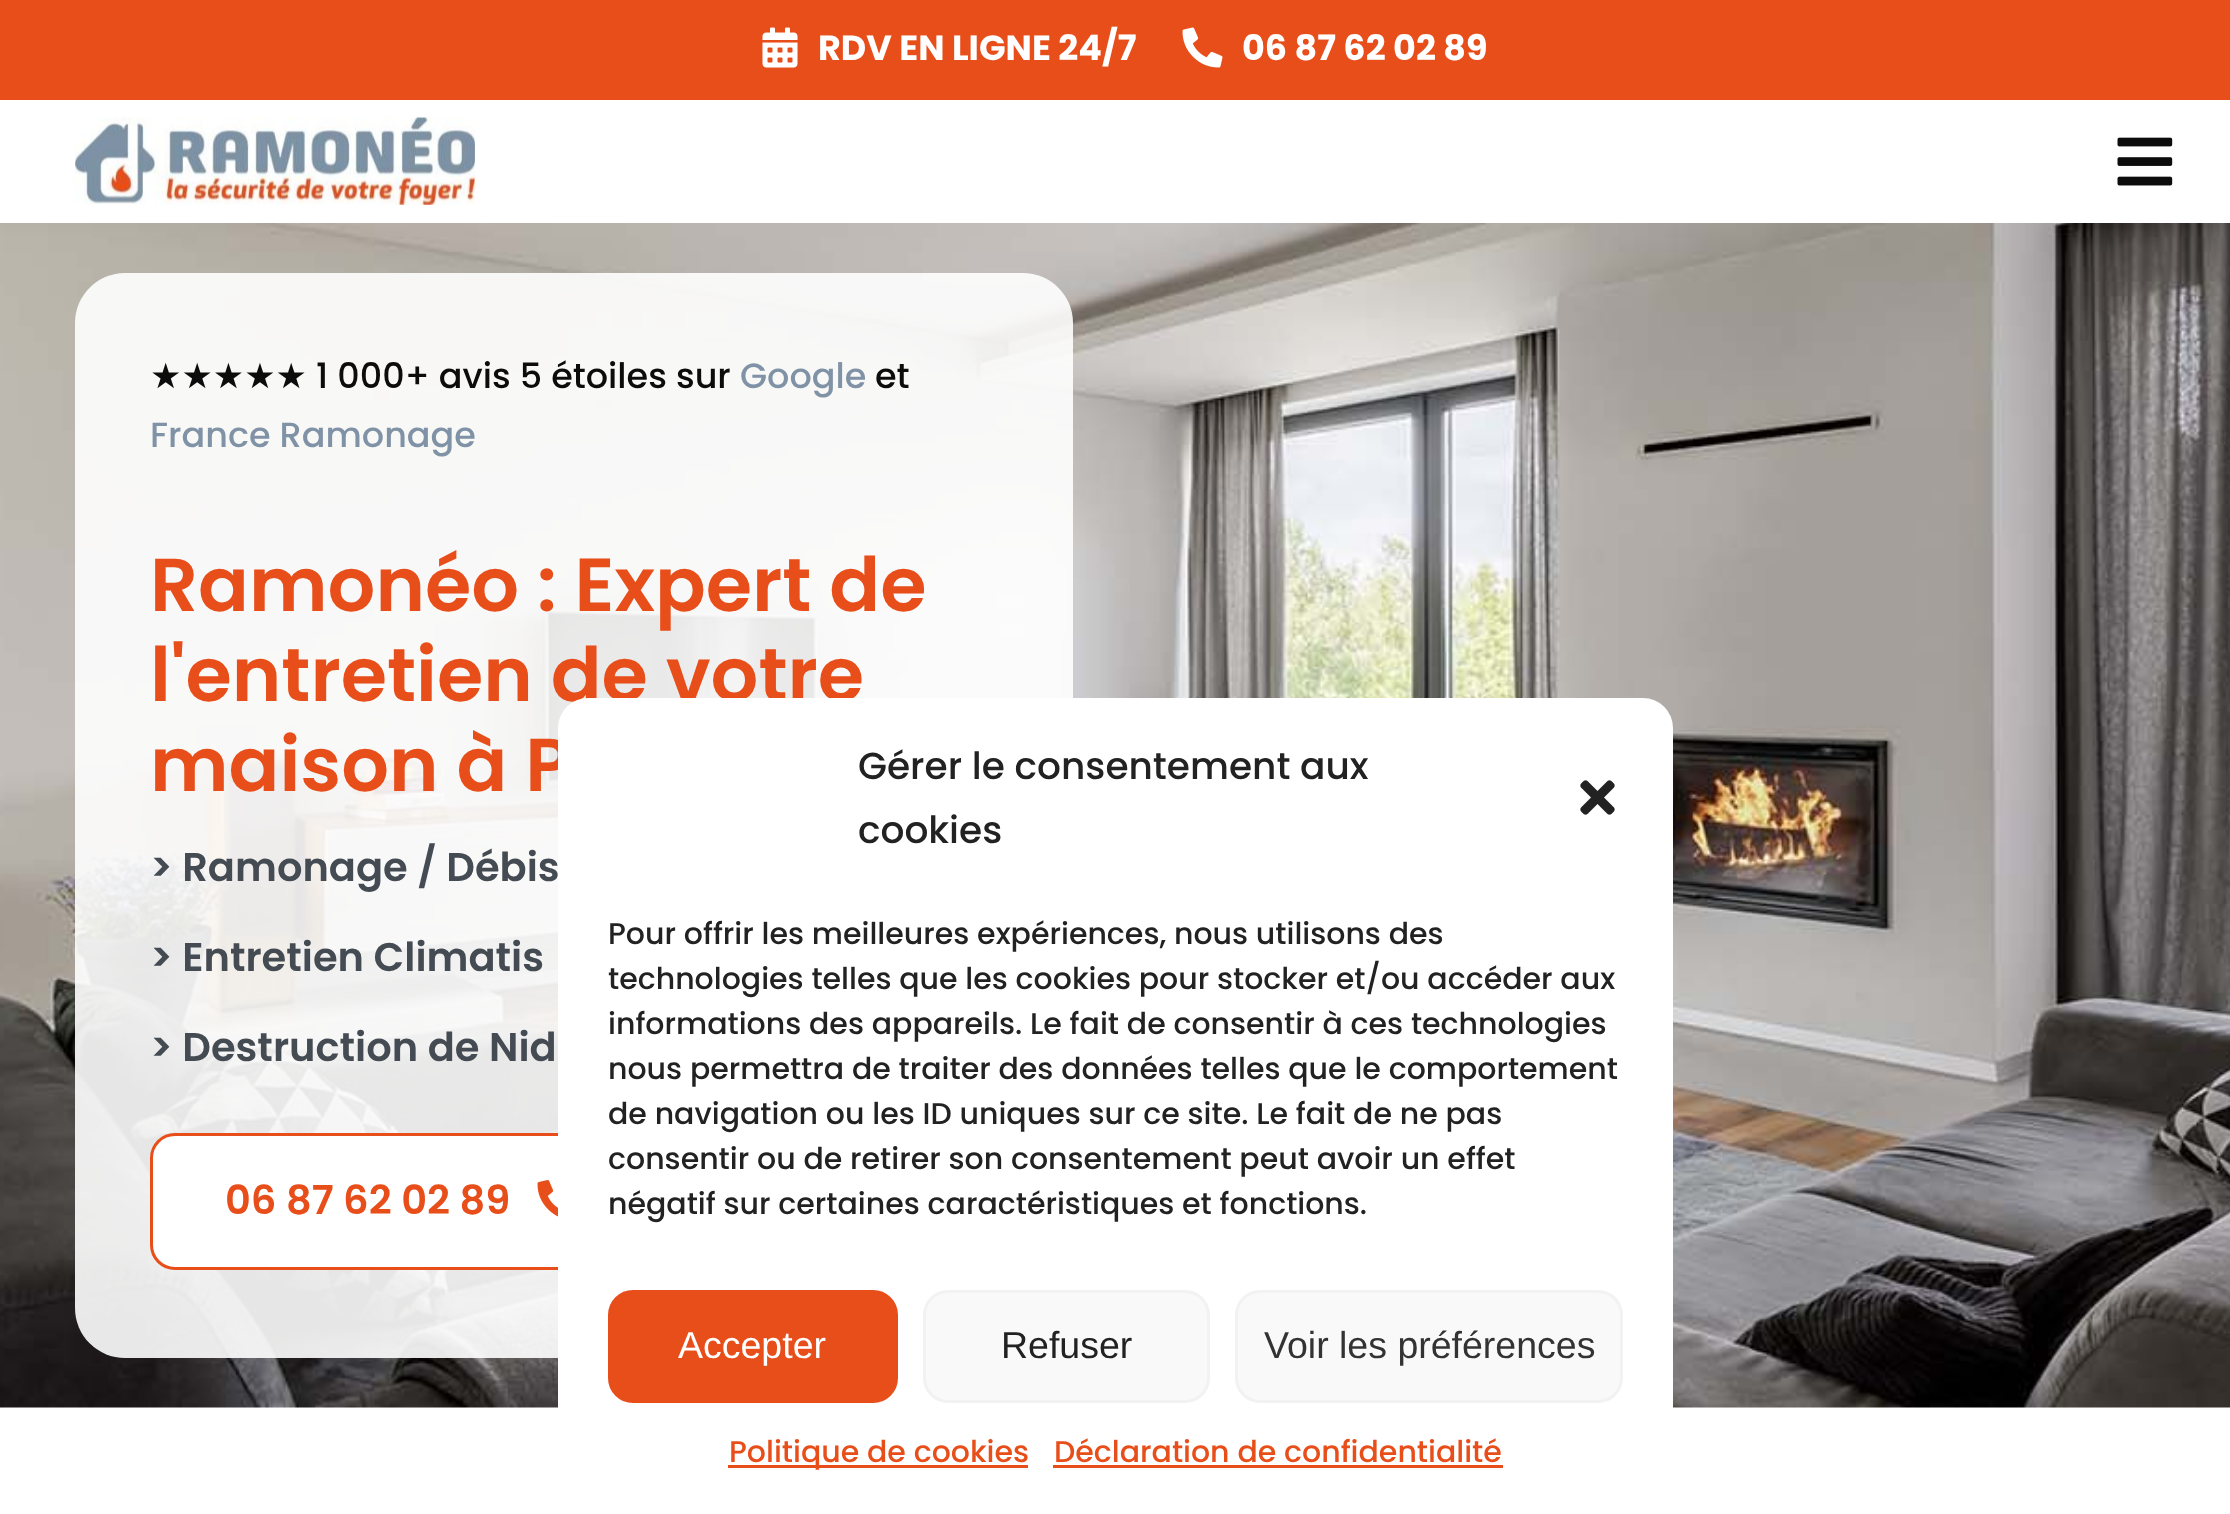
<!DOCTYPE html>
<meta charset="utf-8">
<style>body { margin: 0 } canvas { display: block }</style>
<canvas id="canvas" width="2230" height="1514"></canvas>
<img id="img1" src="img_01.png" hidden>
<img id="img2" src="img_02.png" hidden>
<img id="img3" src="img_03.png" hidden>
<img id="img4" src="img_04.png" hidden>
<img id="img5" src="img_05.png" hidden>
<img id="img6" src="img_06.png" hidden>
<img id="img7" src="img_07.png" hidden>
<script>
window.onload = function () {
	const canvas = document.getElementById("canvas");
	const ctx = canvas.getContext("2d");
	ctx.miterLimit = 4;
	ctx.fontKerning = "normal";
	function txt(s, x, y) {
		ctx.fillText(s, x, y);
	}
	function fill(x, y, w, h) {
		ctx.fillRect(x, y, w, h);
	}
	function round(x, y, w, h, r) {
		ctx.beginPath();
		ctx.roundRect(x, y, w, h, r);
		ctx.fill();
	}
	function img(id, x, y, w, h) {
		ctx.drawImage(document.getElementById(id), x, y, w, h);
	}

	ctx.fillStyle = "#FFFFFF";
	fill(0, 0, 2230, 1514);
	ctx.fillStyle = "#E84E1A";
	fill(0, 0, 2230, 100);
	img("img1", 762, 27, 36, 41);
	img("img2", 1182, 27, 41, 41);
	img("img3", 75, 117, 400, 88);
	img("img4", 2117, 137, 56, 49);
	img("img5", 0, 223, 2230, 1185);
	ctx.fillStyle = "rgba(255, 255, 255, 0.9)";
	round(75, 273, 998, 1085, 50);
	ctx.fillStyle = "#FFFFFF";
	ctx.beginPath();
	ctx.roundRect(151.5, 1134.5, 500, 134, 23.5);
	ctx.fill();
	ctx.strokeStyle = "#E84E1A";
	ctx.lineWidth = 3;
	ctx.stroke();
	img("img6", 537, 1180, 21, 37);
	ctx.font = "bold 35px Poppins";
	txt("RDV EN LIGNE 24/7", 818, 60);
	txt("06 87 62 02 89", 1242, 60);
	ctx.font = "35px DejaVu Sans";
	ctx.fillStyle = "#0C0C0C";
	txt("★★★★★", 150, 388);
	ctx.font = "500 35px Poppins";
	txt("1 000+ avis 5 étoiles sur", 316, 388);
	ctx.fillStyle = "#8092A6";
	txt("Google", 740, 388);
	ctx.fillStyle = "#0C0C0C";
	txt("et", 875, 388);
	ctx.fillStyle = "#8092A6";
	txt("France Ramonage", 150, 447);
	ctx.font = "600 75px Poppins";
	ctx.fillStyle = "#E84E1A";
	txt("Ramonéo : Expert de", 150, 611);
	txt("l'entretien de votre", 150, 701);
	txt("maison à P", 150, 791);
	ctx.font = "600 40px Poppins";
	ctx.fillStyle = "#444B52";
	txt("> Ramonage / Débis", 150, 881);
	txt("> Entretien Climatis", 150, 971);
	txt("> Destruction de Nid", 150, 1061);
	ctx.fillStyle = "#E84E1A";
	txt("06 87 62 02 89", 225, 1214);
	ctx.fillStyle = "#FFFFFF";
	round(558, 698, 1115, 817, 30);
	ctx.font = "500 37.5px Poppins";
	ctx.fillStyle = "#222222";
	txt("Gérer le consentement aux", 858, 779);
	txt("cookies", 858, 843);
	img("img7", 1580, 780, 35, 35);
	ctx.font = "500 30px Poppins";
	txt("Pour offrir les meilleures expériences, nous utilisons des", 608, 944);
	txt("technologies telles que les cookies pour stocker et/ou accéder aux", 608, 989);
	txt("informations des appareils. Le fait de consentir à ces technologies", 608, 1034);
	txt("nous permettra de traiter des données telles que le comportement", 608, 1079);
	txt("de navigation ou les ID uniques sur ce site. Le fait de ne pas", 608, 1124);
	txt("consentir ou de retirer son consentement peut avoir un effet", 608, 1169);
	txt("négatif sur certaines caractéristiques et fonctions.", 608, 1214);
	ctx.fillStyle = "#E84E1A";
	ctx.beginPath();
	ctx.roundRect(609.5, 1291.5, 287, 110, 23.5);
	ctx.fill();
	ctx.stroke();
	ctx.font = "37.5px Liberation Sans";
	ctx.fillStyle = "#FFFFFF";
	txt("Accepter", 678, 1358);
	ctx.fillStyle = "#F9F9F9";
	ctx.beginPath();
	ctx.roundRect(924.5, 1291.5, 284, 110, 23.5);
	ctx.fill();
	ctx.strokeStyle = "#F2F2F2";
	ctx.stroke();
	ctx.fillStyle = "#222222";
	txt("Refuser", 1001, 1358);
	ctx.fillStyle = "#F9F9F9";
	ctx.beginPath();
	ctx.roundRect(1236.5, 1291.5, 385, 110, 23.5);
	ctx.fill();
	ctx.stroke();
	ctx.fillStyle = "#333333";
	txt("Voir les préférences", 1264, 1358);
	ctx.fillStyle = "#E84E1A";
	fill(728, 1465, 300, 3);
	ctx.font = "500 30px Poppins";
	txt("Politique de cookies", 729, 1462);
	txt("Déclaration de confidentialité", 1054, 1462);
	fill(1053, 1465, 450, 3);
};
</script>
